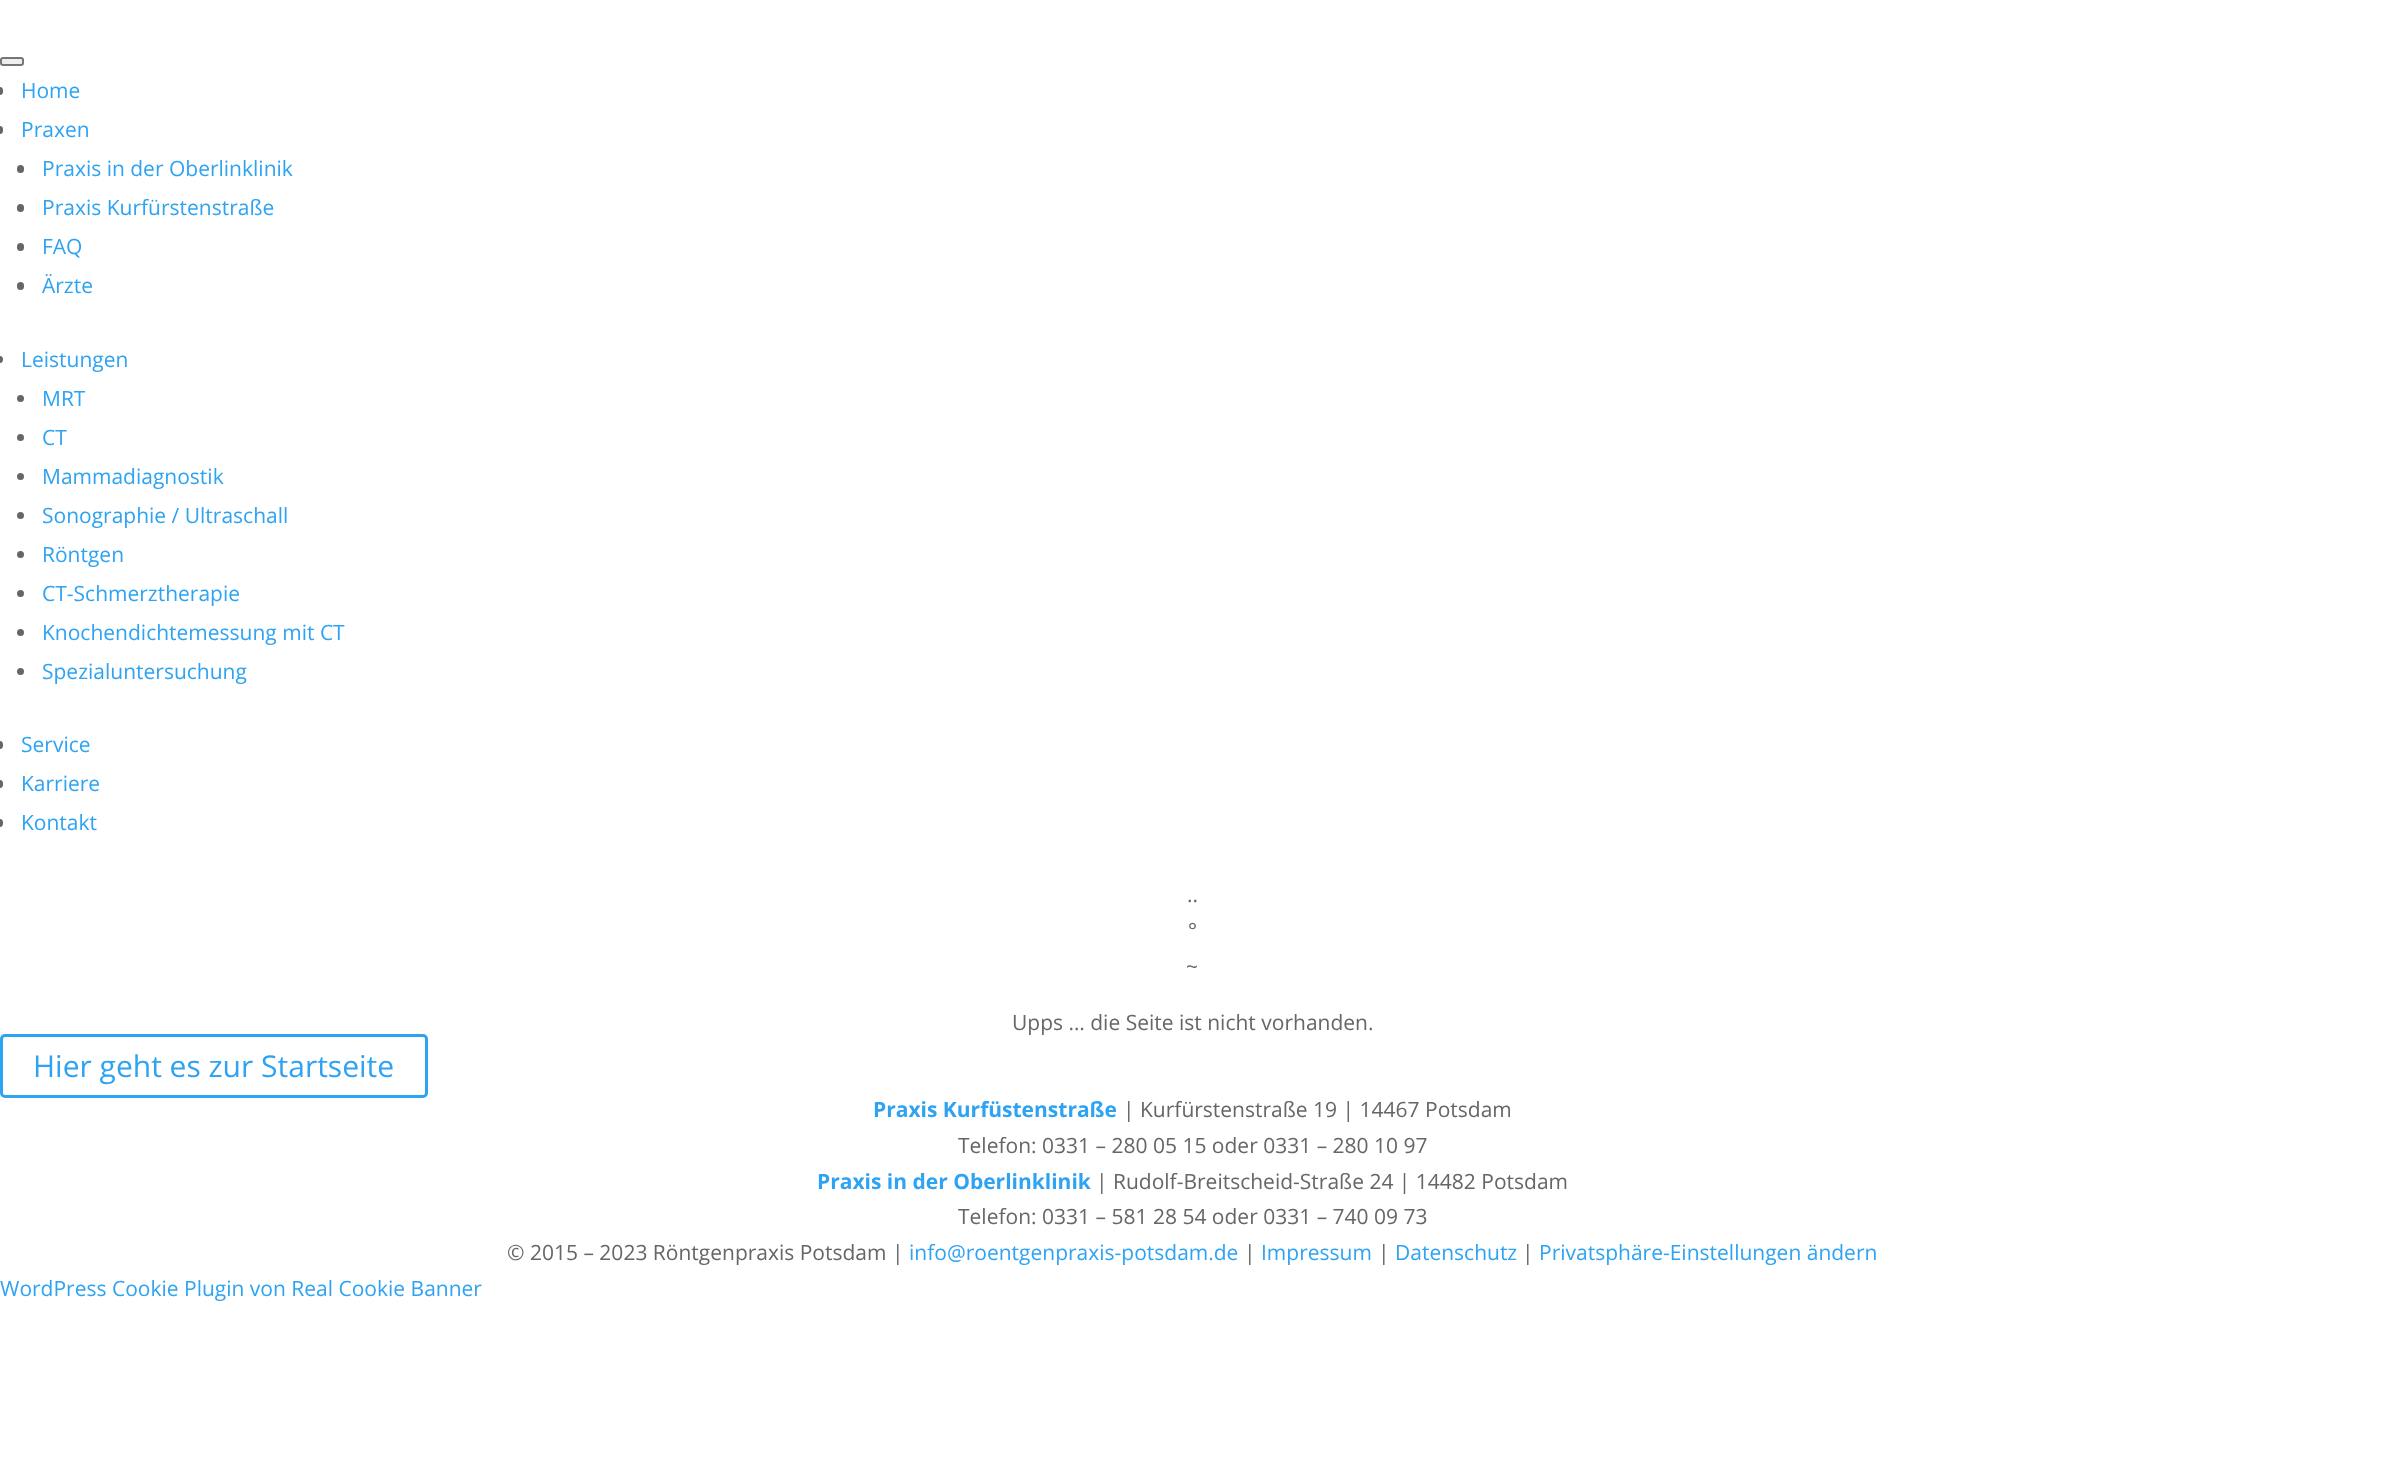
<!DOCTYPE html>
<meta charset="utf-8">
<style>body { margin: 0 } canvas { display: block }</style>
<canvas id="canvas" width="2385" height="1483"></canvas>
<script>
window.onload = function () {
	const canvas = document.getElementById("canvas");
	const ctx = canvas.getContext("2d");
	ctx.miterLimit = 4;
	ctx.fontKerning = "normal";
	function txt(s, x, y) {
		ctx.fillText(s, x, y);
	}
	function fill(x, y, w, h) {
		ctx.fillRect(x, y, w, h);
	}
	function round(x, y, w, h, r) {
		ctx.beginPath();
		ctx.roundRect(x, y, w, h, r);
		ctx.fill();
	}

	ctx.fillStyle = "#FFFFFF";
	fill(0, 0, 2385, 1483);
	ctx.fillStyle = "#EFEFEF";
	ctx.beginPath();
	ctx.roundRect(1, 58, 22, 7, 2);
	ctx.fill();
	ctx.strokeStyle = "#767676";
	ctx.lineWidth = 2;
	ctx.stroke();
	ctx.fillStyle = "#666666";
	round(-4, 87, 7, 8, 3.5);
	round(-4, 126, 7, 8, 3.5);
	round(17, 165, 7, 8, 3.5);
	round(17, 204, 7, 8, 3.5);
	round(17, 243, 7, 8, 3.5);
	round(17, 282, 7, 8, 3.5);
	ctx.beginPath();
	ctx.arc(-0.5, 359.5, 3.5, 0, Math.PI * 2);
	ctx.fill();
	ctx.beginPath();
	ctx.arc(20.5, 398.5, 3.5, 0, Math.PI * 2);
	ctx.fill();
	ctx.beginPath();
	ctx.arc(20.5, 437.5, 3.5, 0, Math.PI * 2);
	ctx.fill();
	ctx.beginPath();
	ctx.arc(20.5, 476.5, 3.5, 0, Math.PI * 2);
	ctx.fill();
	ctx.beginPath();
	ctx.arc(20.5, 515.5, 3.5, 0, Math.PI * 2);
	ctx.fill();
	ctx.beginPath();
	ctx.arc(20.5, 554.5, 3.5, 0, Math.PI * 2);
	ctx.fill();
	ctx.beginPath();
	ctx.arc(20.5, 593.5, 3.5, 0, Math.PI * 2);
	ctx.fill();
	ctx.beginPath();
	ctx.arc(20.5, 632.5, 3.5, 0, Math.PI * 2);
	ctx.fill();
	ctx.beginPath();
	ctx.arc(20.5, 671.5, 3.5, 0, Math.PI * 2);
	ctx.fill();
	round(-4, 741, 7, 8, 3.5);
	round(-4, 780, 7, 8, 3.5);
	round(-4, 819, 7, 8, 3.5);
	ctx.beginPath();
	ctx.roundRect(1.5, 1035.5, 425, 61, 3.5);
	ctx.strokeStyle = "#2EA3F2";
	ctx.lineWidth = 3;
	ctx.stroke();
	ctx.font = "21px Open Sans";
	ctx.fillStyle = "#2EA3F2";
	txt("Home", 21, 98);
	txt("Praxen", 21, 137);
	txt("Praxis in der Oberlinklinik", 42, 176);
	txt("Praxis Kurfürstenstraße", 42, 215);
	txt("FAQ", 42, 254);
	txt("Ärzte", 42, 293);
	txt("Leistungen", 21, 367);
	txt("MRT", 42, 406);
	txt("CT", 42, 445);
	txt("Mammadiagnostik", 42, 484);
	txt("Sonographie / Ultraschall", 42, 523);
	txt("Röntgen", 42, 562);
	txt("CT-Schmerztherapie", 42, 601);
	txt("Knochendichtemessung mit CT", 42, 640);
	txt("Spezialuntersuchung", 42, 679);
	txt("Service", 21, 752);
	txt("Karriere", 21, 791);
	txt("Kontakt", 21, 830);
	ctx.fillStyle = "#666666";
	txt("..", 1187, 902);
	txt("°", 1188, 938);
	txt("~", 1186, 974);
	txt("Upps … die Seite ist nicht vorhanden.", 1012, 1030);
	ctx.font = "30px Open Sans";
	ctx.fillStyle = "#2EA3F2";
	txt("Hier geht es zur Startseite", 33, 1077);
	ctx.font = "bold 21px Open Sans";
	txt("Praxis Kurfüstenstraße", 873, 1117);
	ctx.font = "21px Open Sans";
	ctx.fillStyle = "#666666";
	txt("| Kurfürstenstraße 19 | 14467 Potsdam", 1123, 1117);
	txt("Telefon: 0331 – 280 05 15 oder 0331 – 280 10 97", 958, 1153);
	ctx.font = "bold 21px Open Sans";
	ctx.fillStyle = "#2EA3F2";
	txt("Praxis in der Oberlinklinik", 817, 1189);
	ctx.font = "21px Open Sans";
	ctx.fillStyle = "#666666";
	txt("| Rudolf-Breitscheid-Straße 24 | 14482 Potsdam", 1096, 1189);
	txt("Telefon: 0331 – 581 28 54 oder 0331 – 740 09 73", 958, 1224);
	txt("© 2015 – 2023 Röntgenpraxis Potsdam |", 507, 1260);
	ctx.fillStyle = "#2EA3F2";
	txt("info@roentgenpraxis-potsdam.de", 909, 1260);
	ctx.fillStyle = "#666666";
	txt("|", 1244, 1260);
	ctx.fillStyle = "#2EA3F2";
	txt("Impressum", 1261, 1260);
	ctx.fillStyle = "#666666";
	txt("|", 1378, 1260);
	ctx.fillStyle = "#2EA3F2";
	txt("Datenschutz", 1395, 1260);
	ctx.fillStyle = "#666666";
	txt("|", 1522, 1260);
	ctx.fillStyle = "#2EA3F2";
	txt("Privatsphäre-Einstellungen ändern", 1539, 1260);
	txt("WordPress Cookie Plugin von Real Cookie Banner", 0, 1296);
};
</script>
